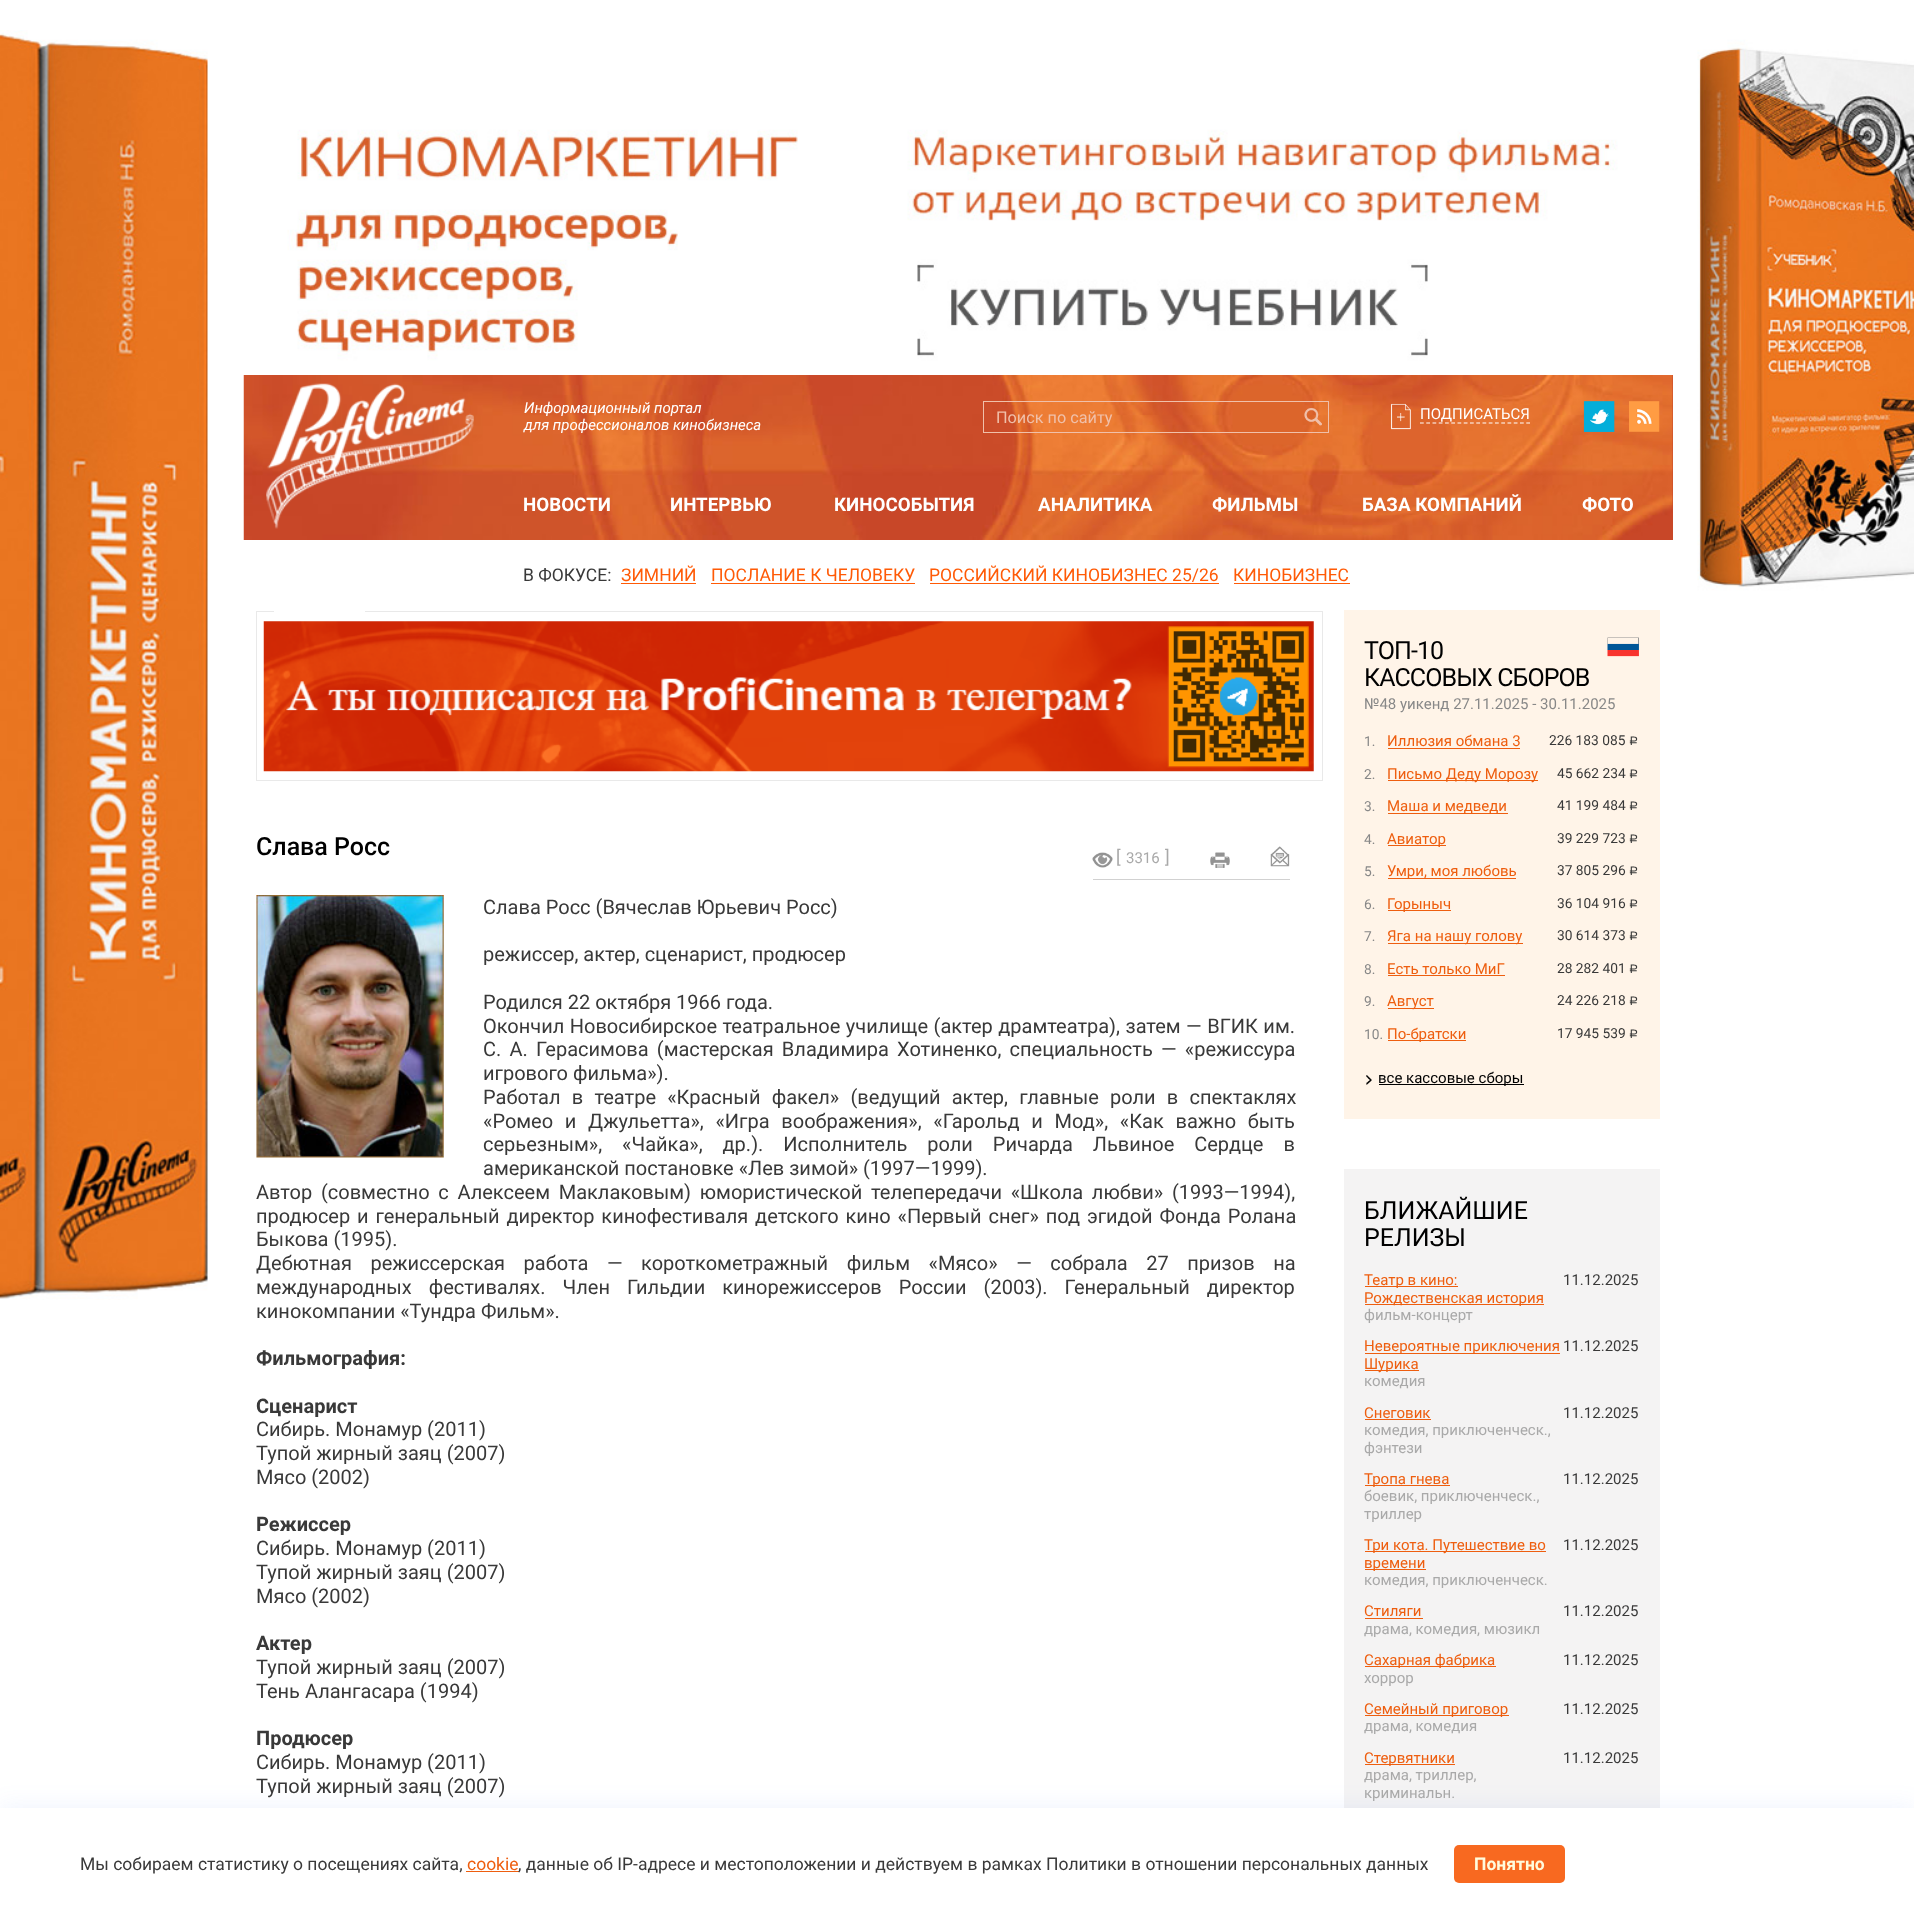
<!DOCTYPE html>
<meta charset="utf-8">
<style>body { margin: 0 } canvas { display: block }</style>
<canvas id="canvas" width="1914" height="1920"></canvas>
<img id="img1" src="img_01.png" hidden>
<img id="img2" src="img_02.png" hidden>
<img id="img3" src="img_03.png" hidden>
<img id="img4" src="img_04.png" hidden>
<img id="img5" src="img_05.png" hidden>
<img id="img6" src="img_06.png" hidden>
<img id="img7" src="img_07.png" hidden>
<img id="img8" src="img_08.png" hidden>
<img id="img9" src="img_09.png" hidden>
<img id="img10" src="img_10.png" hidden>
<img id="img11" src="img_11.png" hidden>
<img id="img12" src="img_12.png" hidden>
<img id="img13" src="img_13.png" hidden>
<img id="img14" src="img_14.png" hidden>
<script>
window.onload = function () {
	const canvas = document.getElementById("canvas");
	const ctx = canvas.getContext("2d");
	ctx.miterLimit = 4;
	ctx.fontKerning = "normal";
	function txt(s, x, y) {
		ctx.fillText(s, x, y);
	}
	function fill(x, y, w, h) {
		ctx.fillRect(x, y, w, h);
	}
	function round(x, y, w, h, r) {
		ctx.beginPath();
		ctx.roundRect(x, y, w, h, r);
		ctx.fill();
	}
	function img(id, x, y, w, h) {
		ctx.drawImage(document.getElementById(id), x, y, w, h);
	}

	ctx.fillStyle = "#FFFFFF";
	fill(0, 0, 1914, 1920);
	img("img1", 0, 30, 1914, 1270);
	ctx.fillStyle = "#C84829";
	fill(1672, 375, 1, 165);
	img("img2", 243, 375, 1430, 165);
	img("img3", 266, 383, 208, 146);
	ctx.strokeStyle = "#F0C0AA";
	ctx.strokeRect(983.5, 401.5, 345, 31);
	img("img4", 1304, 408, 18, 18);
	ctx.beginPath();
	ctx.moveTo(1420, 423);
	ctx.lineTo(1530, 423);
	ctx.strokeStyle = "#FFFFFF";
	ctx.lineWidth = 1.2;
	ctx.setLineDash([3.75, 2.5]);
	ctx.stroke();
	img("img5", 1390, 403, 21, 27);
	img("img6", 1583, 401, 32, 31);
	img("img7", 1629, 401, 31, 31);
	ctx.fillStyle = "#FF5A06";
	fill(621, 583, 75, 1);
	fill(711, 583, 204, 1);
	fill(930, 583, 289, 1);
	fill(1234, 583, 116, 1);
	ctx.strokeStyle = "#E9E9E9";
	ctx.lineWidth = 1;
	ctx.setLineDash([]);
	ctx.strokeRect(256.5, 611.5, 1066, 169);
	ctx.fillStyle = "#FFFFFF";
	fill(274, 611, 91, 1);
	img("img8", 263, 621, 1051, 151);
	ctx.fillStyle = "#D1D1D1";
	fill(1093, 879, 197, 1);
	img("img9", 1092, 852, 21, 16);
	img("img10", 1210, 852, 20, 16);
	img("img11", 1270, 846, 20, 21);
	img("img12", 256, 895, 188, 263);
	ctx.fillStyle = "#FFF4E8";
	fill(1344, 610, 316, 509);
	img("img13", 1607, 637, 32, 20);
	ctx.fillStyle = "#EE5E0F";
	fill(1388, 748, 132, 1);
	fill(1388, 780, 150, 1);
	fill(1388, 813, 120, 1);
	fill(1388, 845, 58, 1);
	fill(1388, 878, 128, 1);
	fill(1388, 910, 63, 1);
	fill(1388, 943, 135, 1);
	fill(1388, 975, 117, 1);
	fill(1388, 1008, 46, 1);
	fill(1388, 1040, 78, 1);
	img("img14", 1366, 1075, 6, 10);
	ctx.fillStyle = "#000000";
	fill(1379, 1084, 145, 1);
	ctx.fillStyle = "#F4F3F3";
	fill(1344, 1169, 316, 639);
	ctx.fillStyle = "#EE5E0F";
	fill(1365, 1286, 93, 1);
	fill(1365, 1304, 179, 1);
	fill(1365, 1353, 195, 1);
	fill(1365, 1370, 54, 1);
	fill(1365, 1419, 66, 1);
	fill(1365, 1485, 85, 1);
	fill(1365, 1551, 181, 1);
	fill(1365, 1569, 61, 1);
	fill(1365, 1618, 58, 1);
	fill(1365, 1666, 131, 1);
	fill(1365, 1715, 144, 1);
	fill(1365, 1764, 90, 1);
	ctx.fillStyle = "rgba(82, 128, 246, 0.1)";
	ctx.filter = "blur(12.5px)";
	ctx.beginPath();
	ctx.rect(0, 1808, 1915, 112);
	ctx.fill();
	ctx.filter = "none";
	ctx.fillStyle = "#FFFFFF";
	fill(0, 1808, 1914, 112);
	ctx.fillStyle = "#EE5E0F";
	fill(466, 1871, 53, 1);
	ctx.fillStyle = "#F86920";
	round(1454, 1845, 111, 38, 5);
	ctx.font = "italic 15px Roboto";
	ctx.fillStyle = "#FFFFFF";
	txt("Информационный портал", 524, 413);
	txt("для профессионалов кинобизнеса", 524, 430);
	ctx.font = "16.25px Roboto";
	ctx.fillStyle = "#F0C0AA";
	txt("Поиск по сайту", 996, 423);
	ctx.font = "15px Roboto";
	ctx.fillStyle = "#FFFFFF";
	txt("ПОДПИСАТЬСЯ", 1420, 419);
	ctx.font = "bold 18.75px Roboto";
	txt("НОВОСТИ", 523, 511);
	txt("ИНТЕРВЬЮ", 670, 511);
	txt("КИНОСОБЫТИЯ", 834, 511);
	txt("АНАЛИТИКА", 1038, 511);
	txt("ФИЛЬМЫ", 1212, 511);
	txt("БАЗА КОМПАНИЙ", 1362, 511);
	txt("ФОТО", 1582, 511);
	ctx.font = "17.5px Roboto";
	ctx.fillStyle = "#393939";
	txt("В ФОКУСЕ:", 523, 581);
	ctx.fillStyle = "#FF5A06";
	txt("ЗИМНИЙ", 621, 581);
	txt("ПОСЛАНИЕ К ЧЕЛОВЕКУ", 711, 581);
	txt("РОССИЙСКИЙ КИНОБИЗНЕС 25/26", 929, 581);
	txt("КИНОБИЗНЕС", 1233, 581);
	ctx.font = "500 25px Roboto";
	ctx.fillStyle = "#000000";
	txt("Слава Росс", 256, 855);
	ctx.font = "17.5px Roboto";
	ctx.fillStyle = "#A9A9A9";
	txt("[", 1116, 863);
	ctx.font = "15px Roboto";
	txt("3316", 1126, 863);
	ctx.font = "17.5px Roboto";
	txt("]", 1165, 863);
	ctx.font = "20px Roboto";
	ctx.fillStyle = "#393939";
	txt("Слава Росс (Вячеслав Юрьевич Росс)", 483, 914);
	txt("режиссер, актер, сценарист, продюсер", 483, 961);
	txt("Родился 22 октября 1966 года.", 483, 1009);
	ctx.wordSpacing = "0.5px";
	txt("Окончил Новосибирское театральное училище (актер драмтеатра), затем — ВГИК им.", 483, 1033);
	ctx.wordSpacing = "3.25px";
	txt("С. А. Герасимова (мастерская Владимира Хотиненко, специальность — «режиссура", 483, 1056);
	ctx.wordSpacing = "0px";
	txt("игрового фильма»).", 483, 1080);
	ctx.wordSpacing = "6.25px";
	txt("Работал в театре «Красный факел» (ведущий актер, главные роли в спектаклях", 483, 1104);
	ctx.wordSpacing = "6.75px";
	txt("«Ромео и Джульетта», «Игра воображения», «Гарольд и Мод», «Как важно быть", 483, 1128);
	ctx.wordSpacing = "15px";
	txt("серьезным», «Чайка», др.). Исполнитель роли Ричарда Львиное Сердце в", 483, 1151);
	ctx.wordSpacing = "0px";
	txt("американской постановке «Лев зимой» (1997—1999).", 483, 1175);
	ctx.wordSpacing = "3.75px";
	txt("Автор (совместно с Алексеем Маклаковым) юмористической телепередачи «Школа любви» (1993—1994),", 256, 1199);
	ctx.wordSpacing = "1.9px";
	txt("продюсер и генеральный директор кинофестиваля детского кино «Первый снег» под эгидой Фонда Ролана", 256, 1223);
	ctx.wordSpacing = "0px";
	txt("Быкова (1995).", 256, 1246);
	ctx.wordSpacing = "13.6px";
	txt("Дебютная режиссерская работа — короткометражный фильм «Мясо» — собрала 27 призов на", 256, 1270);
	ctx.wordSpacing = "12px";
	txt("международных фестивалях. Член Гильдии кинорежиссеров России (2003). Генеральный директор", 256, 1294);
	ctx.wordSpacing = "0px";
	txt("кинокомпании «Тундра Фильм».", 256, 1318);
	ctx.font = "bold 20px Roboto";
	txt("Фильмография:", 256, 1365);
	txt("Сценарист", 256, 1413);
	ctx.font = "20px Roboto";
	txt("Сибирь. Монамур (2011)", 256, 1436);
	txt("Тупой жирный заяц (2007)", 256, 1460);
	txt("Мясо (2002)", 256, 1484);
	ctx.font = "bold 20px Roboto";
	txt("Режиcсер", 256, 1531);
	ctx.font = "20px Roboto";
	txt("Сибирь. Монамур (2011)", 256, 1555);
	txt("Тупой жирный заяц (2007)", 256, 1579);
	txt("Мясо (2002)", 256, 1603);
	ctx.font = "bold 20px Roboto";
	txt("Актер", 256, 1650);
	ctx.font = "20px Roboto";
	txt("Тупой жирный заяц (2007)", 256, 1674);
	txt("Тень Алангасара (1994)", 256, 1698);
	ctx.font = "bold 20px Roboto";
	txt("Продюсер", 256, 1745);
	ctx.font = "20px Roboto";
	txt("Сибирь. Монамур (2011)", 256, 1769);
	txt("Тупой жирный заяц (2007)", 256, 1793);
	ctx.letterSpacing = "-0.9px";
	ctx.font = "25px Roboto";
	ctx.fillStyle = "#000000";
	txt("ТОП-10", 1364, 659);
	txt("КАССОВЫХ СБОРОВ", 1364, 686);
	ctx.letterSpacing = "0px";
	ctx.font = "15px Roboto";
	ctx.fillStyle = "#888888";
	txt("№48 уикенд 27.11.2025 - 30.11.2025", 1364, 709);
	ctx.font = "13.75px Roboto";
	txt("1.", 1364, 746);
	ctx.font = "15px Roboto";
	ctx.fillStyle = "#EE5E0F";
	txt("Иллюзия обмана 3", 1387, 746);
	ctx.font = "13.75px Roboto";
	ctx.fillStyle = "#393939";
	txt("226 183 085", 1549, 745);
	ctx.font = "12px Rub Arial";
	txt("руб.", 1629, 745);
	ctx.font = "13.75px Roboto";
	ctx.fillStyle = "#888888";
	txt("2.", 1364, 779);
	ctx.font = "15px Roboto";
	ctx.fillStyle = "#EE5E0F";
	txt("Письмо Деду Морозу", 1387, 779);
	ctx.font = "13.75px Roboto";
	ctx.fillStyle = "#393939";
	txt("45 662 234", 1557, 778);
	ctx.font = "12px Rub Arial";
	txt("руб.", 1629, 778);
	ctx.font = "13.75px Roboto";
	ctx.fillStyle = "#888888";
	txt("3.", 1364, 811);
	ctx.font = "15px Roboto";
	ctx.fillStyle = "#EE5E0F";
	txt("Маша и медведи", 1387, 811);
	ctx.font = "13.75px Roboto";
	ctx.fillStyle = "#393939";
	txt("41 199 484", 1557, 810);
	ctx.font = "12px Rub Arial";
	txt("руб.", 1629, 810);
	ctx.font = "13.75px Roboto";
	ctx.fillStyle = "#888888";
	txt("4.", 1364, 844);
	ctx.font = "15px Roboto";
	ctx.fillStyle = "#EE5E0F";
	txt("Авиатор", 1387, 844);
	ctx.font = "13.75px Roboto";
	ctx.fillStyle = "#393939";
	txt("39 229 723", 1557, 843);
	ctx.font = "12px Rub Arial";
	txt("руб.", 1629, 843);
	ctx.font = "13.75px Roboto";
	ctx.fillStyle = "#888888";
	txt("5.", 1364, 876);
	ctx.font = "15px Roboto";
	ctx.fillStyle = "#EE5E0F";
	txt("Умри, моя любовь", 1387, 876);
	ctx.font = "13.75px Roboto";
	ctx.fillStyle = "#393939";
	txt("37 805 296", 1557, 875);
	ctx.font = "12px Rub Arial";
	txt("руб.", 1629, 875);
	ctx.font = "13.75px Roboto";
	ctx.fillStyle = "#888888";
	txt("6.", 1364, 909);
	ctx.font = "15px Roboto";
	ctx.fillStyle = "#EE5E0F";
	txt("Горыныч", 1387, 909);
	ctx.font = "13.75px Roboto";
	ctx.fillStyle = "#393939";
	txt("36 104 916", 1557, 908);
	ctx.font = "12px Rub Arial";
	txt("руб.", 1629, 908);
	ctx.font = "13.75px Roboto";
	ctx.fillStyle = "#888888";
	txt("7.", 1364, 941);
	ctx.font = "15px Roboto";
	ctx.fillStyle = "#EE5E0F";
	txt("Яга на нашу голову", 1387, 941);
	ctx.font = "13.75px Roboto";
	ctx.fillStyle = "#393939";
	txt("30 614 373", 1557, 940);
	ctx.font = "12px Rub Arial";
	txt("руб.", 1629, 940);
	ctx.font = "13.75px Roboto";
	ctx.fillStyle = "#888888";
	txt("8.", 1364, 974);
	ctx.font = "15px Roboto";
	ctx.fillStyle = "#EE5E0F";
	txt("Есть только МиГ", 1387, 974);
	ctx.font = "13.75px Roboto";
	ctx.fillStyle = "#393939";
	txt("28 282 401", 1557, 973);
	ctx.font = "12px Rub Arial";
	txt("руб.", 1629, 973);
	ctx.font = "13.75px Roboto";
	ctx.fillStyle = "#888888";
	txt("9.", 1364, 1006);
	ctx.font = "15px Roboto";
	ctx.fillStyle = "#EE5E0F";
	txt("Август", 1387, 1006);
	ctx.font = "13.75px Roboto";
	ctx.fillStyle = "#393939";
	txt("24 226 218", 1557, 1005);
	ctx.font = "12px Rub Arial";
	txt("руб.", 1629, 1005);
	ctx.font = "13.75px Roboto";
	ctx.fillStyle = "#888888";
	txt("10.", 1364, 1039);
	ctx.font = "15px Roboto";
	ctx.fillStyle = "#EE5E0F";
	txt("По-братски", 1387, 1039);
	ctx.font = "13.75px Roboto";
	ctx.fillStyle = "#393939";
	txt("17 945 539", 1557, 1038);
	ctx.font = "12px Rub Arial";
	txt("руб.", 1629, 1038);
	ctx.font = "15px Roboto";
	ctx.fillStyle = "#000000";
	txt("все кассовые сборы", 1378, 1083);
	ctx.font = "25px Roboto";
	txt("БЛИЖАЙШИЕ", 1364, 1219);
	txt("РЕЛИЗЫ", 1364, 1246);
	ctx.font = "15px Roboto";
	ctx.fillStyle = "#EE5E0F";
	txt("Театр в кино:", 1364, 1285);
	txt("Рождественская история", 1364, 1303);
	ctx.fillStyle = "#A9A9A9";
	txt("фильм-концерт", 1364, 1320);
	ctx.fillStyle = "#393939";
	txt("11.12.2025", 1563, 1285);
	ctx.fillStyle = "#EE5E0F";
	txt("Невероятные приключения", 1364, 1351);
	txt("Шурика", 1364, 1369);
	ctx.fillStyle = "#A9A9A9";
	txt("комедия", 1364, 1386);
	ctx.fillStyle = "#393939";
	txt("11.12.2025", 1563, 1351);
	ctx.fillStyle = "#EE5E0F";
	txt("Снеговик", 1364, 1418);
	ctx.fillStyle = "#A9A9A9";
	txt("комедия, приключенческ.,", 1364, 1435);
	txt("фэнтези", 1364, 1453);
	ctx.fillStyle = "#393939";
	txt("11.12.2025", 1563, 1418);
	ctx.fillStyle = "#EE5E0F";
	txt("Тропа гнева", 1364, 1484);
	ctx.fillStyle = "#A9A9A9";
	txt("боевик, приключенческ.,", 1364, 1501);
	txt("триллер", 1364, 1519);
	ctx.fillStyle = "#393939";
	txt("11.12.2025", 1563, 1484);
	ctx.fillStyle = "#EE5E0F";
	txt("Три кота. Путешествие во", 1364, 1550);
	txt("времени", 1364, 1568);
	ctx.fillStyle = "#A9A9A9";
	txt("комедия, приключенческ.", 1364, 1585);
	ctx.fillStyle = "#393939";
	txt("11.12.2025", 1563, 1550);
	ctx.fillStyle = "#EE5E0F";
	txt("Стиляги", 1364, 1616);
	ctx.fillStyle = "#A9A9A9";
	txt("драма, комедия, мюзикл", 1364, 1634);
	ctx.fillStyle = "#393939";
	txt("11.12.2025", 1563, 1616);
	ctx.fillStyle = "#EE5E0F";
	txt("Сахарная фабрика", 1364, 1665);
	ctx.fillStyle = "#A9A9A9";
	txt("хоррор", 1364, 1683);
	ctx.fillStyle = "#393939";
	txt("11.12.2025", 1563, 1665);
	ctx.fillStyle = "#EE5E0F";
	txt("Семейный приговор", 1364, 1714);
	ctx.fillStyle = "#A9A9A9";
	txt("драма, комедия", 1364, 1731);
	ctx.fillStyle = "#393939";
	txt("11.12.2025", 1563, 1714);
	ctx.fillStyle = "#EE5E0F";
	txt("Стервятники", 1364, 1763);
	ctx.fillStyle = "#A9A9A9";
	txt("драма, триллер,", 1364, 1780);
	txt("криминальн.", 1364, 1798);
	ctx.fillStyle = "#393939";
	txt("11.12.2025", 1563, 1763);
	ctx.font = "17.5px Roboto";
	txt("Мы собираем статистику о посещениях сайта,", 80, 1870);
	ctx.fillStyle = "#EE5E0F";
	txt("cookie", 467, 1870);
	ctx.fillStyle = "#393939";
	txt(", данные об IP-адресе и местоположении и действуем в рамках Политики в отношении персональных данных", 518, 1870);
	ctx.font = "bold 17.5px Roboto";
	ctx.fillStyle = "#FFFBDC";
	txt("Понятно", 1474, 1870);
};
</script>
